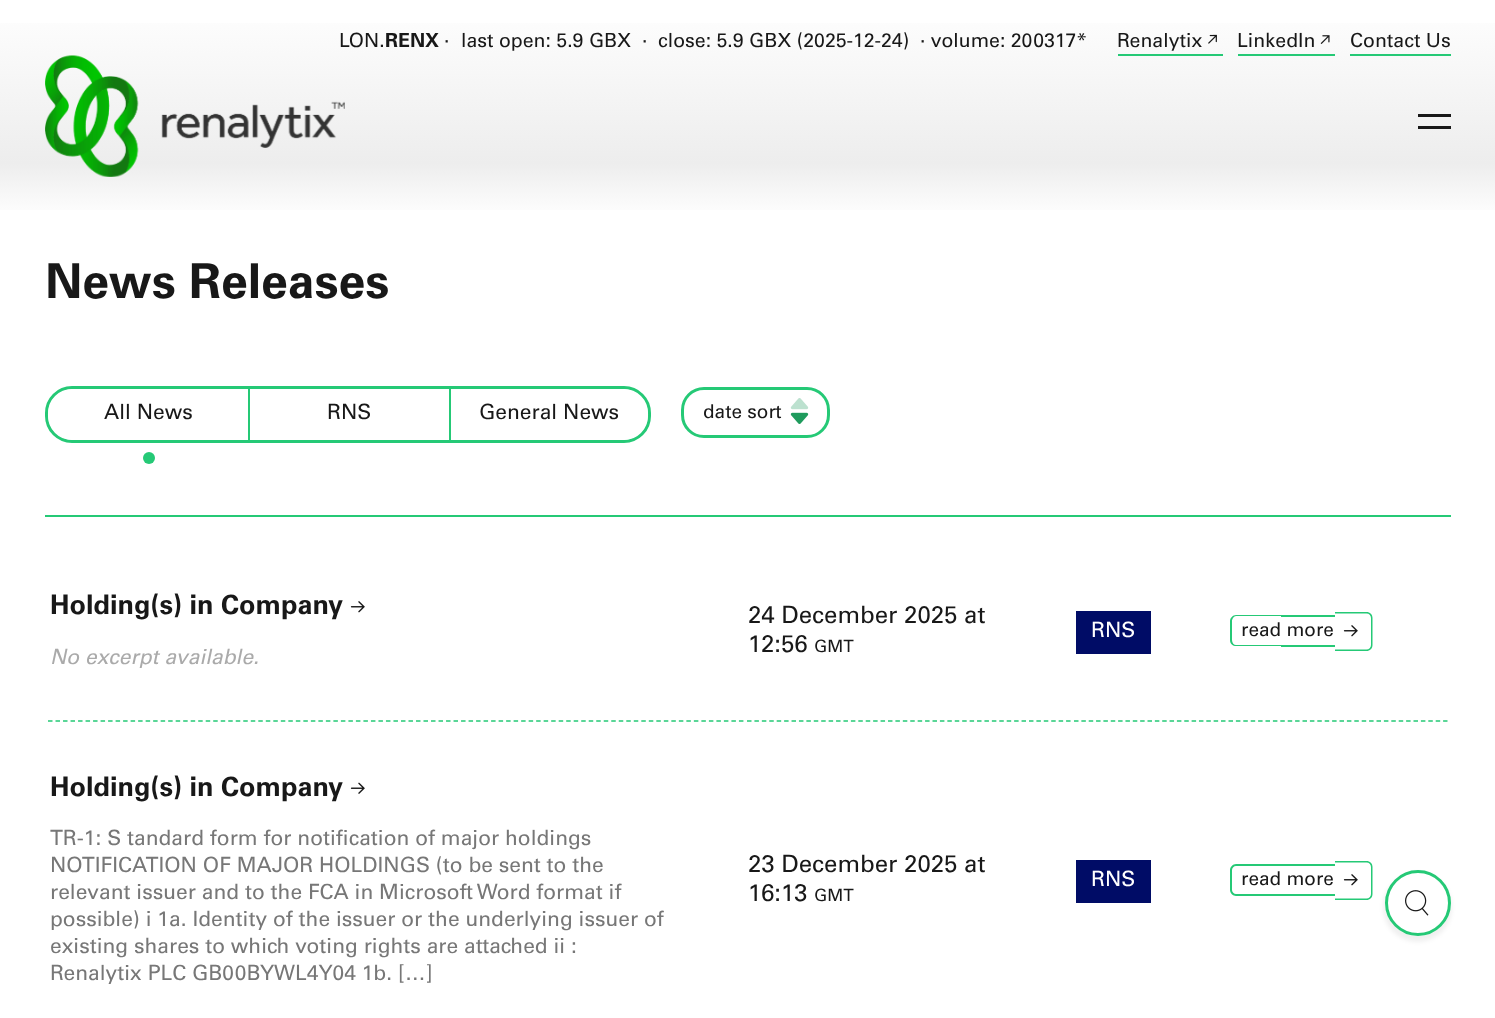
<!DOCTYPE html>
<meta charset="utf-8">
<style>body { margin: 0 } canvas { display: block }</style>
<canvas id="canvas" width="1495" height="1018"></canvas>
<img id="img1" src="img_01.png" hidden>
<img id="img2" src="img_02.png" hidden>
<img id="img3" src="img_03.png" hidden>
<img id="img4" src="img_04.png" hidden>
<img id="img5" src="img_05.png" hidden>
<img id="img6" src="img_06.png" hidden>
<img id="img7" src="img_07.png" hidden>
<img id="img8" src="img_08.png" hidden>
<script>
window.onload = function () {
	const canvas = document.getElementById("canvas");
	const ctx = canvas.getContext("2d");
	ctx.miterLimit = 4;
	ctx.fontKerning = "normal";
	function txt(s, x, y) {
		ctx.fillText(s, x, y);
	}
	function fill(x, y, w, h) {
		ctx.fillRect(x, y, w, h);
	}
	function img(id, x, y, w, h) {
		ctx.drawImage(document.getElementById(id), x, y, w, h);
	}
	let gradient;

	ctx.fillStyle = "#FFFFFF";
	fill(0, 0, 1495, 1018);
	gradient = ctx.createLinearGradient(748, 0, 748, 218);
	gradient.addColorStop(0, "#FFFFFF");
	gradient.addColorStop(0.75, "#EDEDED");
	gradient.addColorStop(1, "#FFFFFF");
	ctx.fillStyle = gradient;
	fill(0, 23, 1495, 187);
	ctx.fillStyle = "#25C976";
	fill(1118, 54, 105, 2);
	img("img1", 1208, 34, 9, 10);
	fill(1238, 54, 97, 2);
	img("img2", 1320, 35, 10, 9);
	fill(1350, 54, 101, 2);
	img("img3", 45, 55, 300, 122);
	ctx.fillStyle = "#181818";
	fill(1418, 114, 33, 3);
	fill(1418, 126, 33, 3);
	ctx.beginPath();
	ctx.roundRect(46.5, 387.5, 603, 54, 25.5);
	ctx.strokeStyle = "#25C976";
	ctx.lineWidth = 3;
	ctx.stroke();
	ctx.fillStyle = "#FFFFFF";
	ctx.beginPath();
	ctx.roundRect(48, 389, 200, 51, [25.5, 0, 0, 25.5]);
	ctx.fill();
	ctx.fillStyle = "#25C976";
	ctx.beginPath();
	ctx.arc(149, 458, 6, 0, Math.PI * 2);
	ctx.fill();
	fill(248, 389, 2, 51);
	ctx.fillStyle = "#FFFFFF";
	ctx.beginPath();
	ctx.roundRect(449, 389, 199, 51, [0, 25.5, 25.5, 0]);
	ctx.fill();
	ctx.fillStyle = "#25C976";
	fill(449, 389, 2, 51);
	ctx.beginPath();
	ctx.roundRect(682.5, 388.5, 146, 48, 21.5);
	ctx.stroke();
	img("img4", 790, 398, 19, 12);
	img("img5", 790, 412, 19, 12);
	fill(45, 515, 1406, 2);
	ctx.beginPath();
	ctx.moveTo(48, 721);
	ctx.lineTo(744, 721);
	ctx.lineWidth = 1.5;
	ctx.setLineDash([4.5, 3.01]);
	ctx.stroke();
	img("img6", 350, 601, 15, 12);
	ctx.beginPath();
	ctx.moveTo(747, 721);
	ctx.lineTo(1071, 721);
	ctx.setLineDash([4.5, 2.92]);
	ctx.stroke();
	ctx.beginPath();
	ctx.moveTo(1074, 721);
	ctx.lineTo(1225.5, 721);
	ctx.setLineDash([4.5, 2.85]);
	ctx.stroke();
	ctx.fillStyle = "#000C66";
	fill(1076, 611, 75, 43);
	ctx.beginPath();
	ctx.moveTo(1228.5, 721);
	ctx.lineTo(1447.5, 721);
	ctx.setLineDash([4.5, 2.9]);
	ctx.stroke();
	ctx.fillStyle = "#25C976";
	ctx.beginPath();
	ctx.moveTo(1236, 615);
	ctx.lineTo(1281, 615);
	ctx.lineTo(1281, 646);
	ctx.lineTo(1236, 646);
	ctx.bezierCurveTo(1233, 646, 1230, 644, 1230, 640);
	ctx.lineTo(1230, 621);
	ctx.bezierCurveTo(1230, 618, 1233, 615, 1236, 615);
	ctx.closePath();
	ctx.moveTo(1236, 616);
	ctx.lineTo(1281, 616);
	ctx.lineTo(1281, 645);
	ctx.lineTo(1236, 645);
	ctx.bezierCurveTo(1234, 645, 1232, 643, 1232, 640);
	ctx.lineTo(1232, 621);
	ctx.bezierCurveTo(1232, 619, 1234, 616, 1236, 616);
	ctx.closePath();
	ctx.fill("evenodd");
	fill(1281, 615, 54, 2);
	fill(1281, 645, 54, 2);
	ctx.beginPath();
	ctx.moveTo(1335, 612);
	ctx.lineTo(1366.5, 612);
	ctx.bezierCurveTo(1370, 612, 1372.5, 614.5, 1372.5, 618);
	ctx.lineTo(1372.5, 645);
	ctx.bezierCurveTo(1372.5, 648.5, 1370, 651, 1366.5, 651);
	ctx.lineTo(1335, 651);
	ctx.closePath();
	ctx.moveTo(1335, 613.5);
	ctx.lineTo(1366.5, 613.5);
	ctx.bezierCurveTo(1369, 613.5, 1371, 615.5, 1371, 618);
	ctx.lineTo(1371, 645);
	ctx.bezierCurveTo(1371, 647.5, 1369, 649.5, 1366.5, 649.5);
	ctx.lineTo(1335, 649.5);
	ctx.closePath();
	ctx.fill("evenodd");
	img("img6", 1343, 625, 15, 12);
	img("img7", 350, 782, 15, 12);
	ctx.fillStyle = "#000C66";
	fill(1076, 860, 75, 43);
	ctx.fillStyle = "#25C976";
	ctx.beginPath();
	ctx.moveTo(1236, 864);
	ctx.lineTo(1281, 864);
	ctx.lineTo(1281, 896);
	ctx.lineTo(1236, 896);
	ctx.bezierCurveTo(1233, 896, 1230, 893, 1230, 890);
	ctx.lineTo(1230, 870);
	ctx.bezierCurveTo(1230, 867, 1233, 864, 1236, 864);
	ctx.closePath();
	ctx.moveTo(1236, 866);
	ctx.lineTo(1281, 866);
	ctx.lineTo(1281, 894);
	ctx.lineTo(1236, 894);
	ctx.bezierCurveTo(1234, 894, 1232, 892, 1232, 890);
	ctx.lineTo(1232, 870);
	ctx.bezierCurveTo(1232, 868, 1234, 866, 1236, 866);
	ctx.closePath();
	ctx.fill("evenodd");
	fill(1281, 864, 54, 2);
	fill(1281, 894, 54, 2);
	ctx.beginPath();
	ctx.moveTo(1335, 861);
	ctx.lineTo(1366.5, 861);
	ctx.bezierCurveTo(1370, 861, 1372.5, 863.5, 1372.5, 867);
	ctx.lineTo(1372.5, 894);
	ctx.bezierCurveTo(1372.5, 897.5, 1370, 900, 1366.5, 900);
	ctx.lineTo(1335, 900);
	ctx.closePath();
	ctx.moveTo(1335, 862.5);
	ctx.lineTo(1366.5, 862.5);
	ctx.bezierCurveTo(1369, 862.5, 1371, 864.5, 1371, 867);
	ctx.lineTo(1371, 894);
	ctx.bezierCurveTo(1371, 896.5, 1369, 898.5, 1366.5, 898.5);
	ctx.lineTo(1335, 898.5);
	ctx.closePath();
	ctx.fill("evenodd");
	img("img6", 1343, 874, 15, 12);
	ctx.fillStyle = "rgba(0, 0, 0, 0.06)";
	ctx.filter = "blur(2px)";
	ctx.beginPath();
	ctx.roundRect(1383, 873, 69, 69, 34.5);
	ctx.fill();
	ctx.filter = "none";
	ctx.fillStyle = "#FFFFFF";
	ctx.beginPath();
	ctx.arc(1418, 903, 33, 0, Math.PI * 2);
	ctx.fill();
	img("img8", 1405, 890, 24, 26);
	ctx.beginPath();
	ctx.arc(1418, 903, 31.5, 0, Math.PI * 2);
	ctx.lineWidth = 3;
	ctx.setLineDash([]);
	ctx.stroke();
	ctx.font = "19.5px Univers";
	ctx.fillStyle = "#181818";
	txt("LON.", 339, 47);
	ctx.font = "bold 19.5px Univers";
	txt("RENX", 385, 47);
	ctx.font = "19.5px Univers";
	txt("·", 444, 47);
	txt("last open: 5.9 GBX", 461, 47);
	txt("·", 642, 47);
	txt("close: 5.9 GBX (2025-12-24)", 658, 47);
	txt("· volume: 200317*", 920, 47);
	txt("Renalytix", 1117, 47);
	txt("LinkedIn", 1237, 47);
	txt("Contact Us", 1350, 47);
	ctx.font = "bold 48px Univers";
	txt("News Releases", 45, 298);
	ctx.font = "21px Univers";
	txt("All News", 104, 419);
	txt("RNS", 327, 419);
	txt("General News", 479, 419);
	ctx.font = "19px Univers";
	txt("date sort", 703, 418);
	ctx.font = "bold 27px Univers";
	txt("Holding(s) in Company", 50, 614);
	ctx.font = "italic 21px Univers";
	ctx.fillStyle = "#AAAAAA";
	txt("No excerpt available.", 50, 664);
	ctx.font = "24px Univers";
	ctx.fillStyle = "#181818";
	txt("24 December 2025 at", 748, 623);
	txt("12:56", 748, 652);
	ctx.font = "17px Univers";
	txt("GMT", 814, 652);
	ctx.font = "21px Univers";
	ctx.fillStyle = "#FFFFFF";
	txt("RNS", 1091, 637);
	ctx.font = "19px Univers";
	ctx.fillStyle = "#181818";
	txt("read more", 1241, 636);
	ctx.font = "bold 27px Univers";
	txt("Holding(s) in Company", 50, 796);
	ctx.font = "21px Univers";
	ctx.fillStyle = "#777777";
	txt("TR-1: S tandard form for notification of major holdings", 50, 845);
	txt("NOTIFICATION OF MAJOR HOLDINGS (to be sent to the", 50, 872);
	txt("relevant issuer and to the FCA in Microsoft Word format if", 50, 899);
	txt("possible) i 1a. Identity of the issuer or the underlying issuer of", 50, 926);
	txt("existing shares to which voting rights are attached ii :", 50, 953);
	txt("Renalytix PLC GB00BYWL4Y04 1b. […]", 50, 980);
	ctx.font = "24px Univers";
	ctx.fillStyle = "#181818";
	txt("23 December 2025 at", 748, 872);
	txt("16:13", 748, 901);
	ctx.font = "17px Univers";
	txt("GMT", 814, 901);
	ctx.font = "21px Univers";
	ctx.fillStyle = "#FFFFFF";
	txt("RNS", 1091, 886);
	ctx.font = "19px Univers";
	ctx.fillStyle = "#181818";
	txt("read more", 1241, 885);
};
</script>
